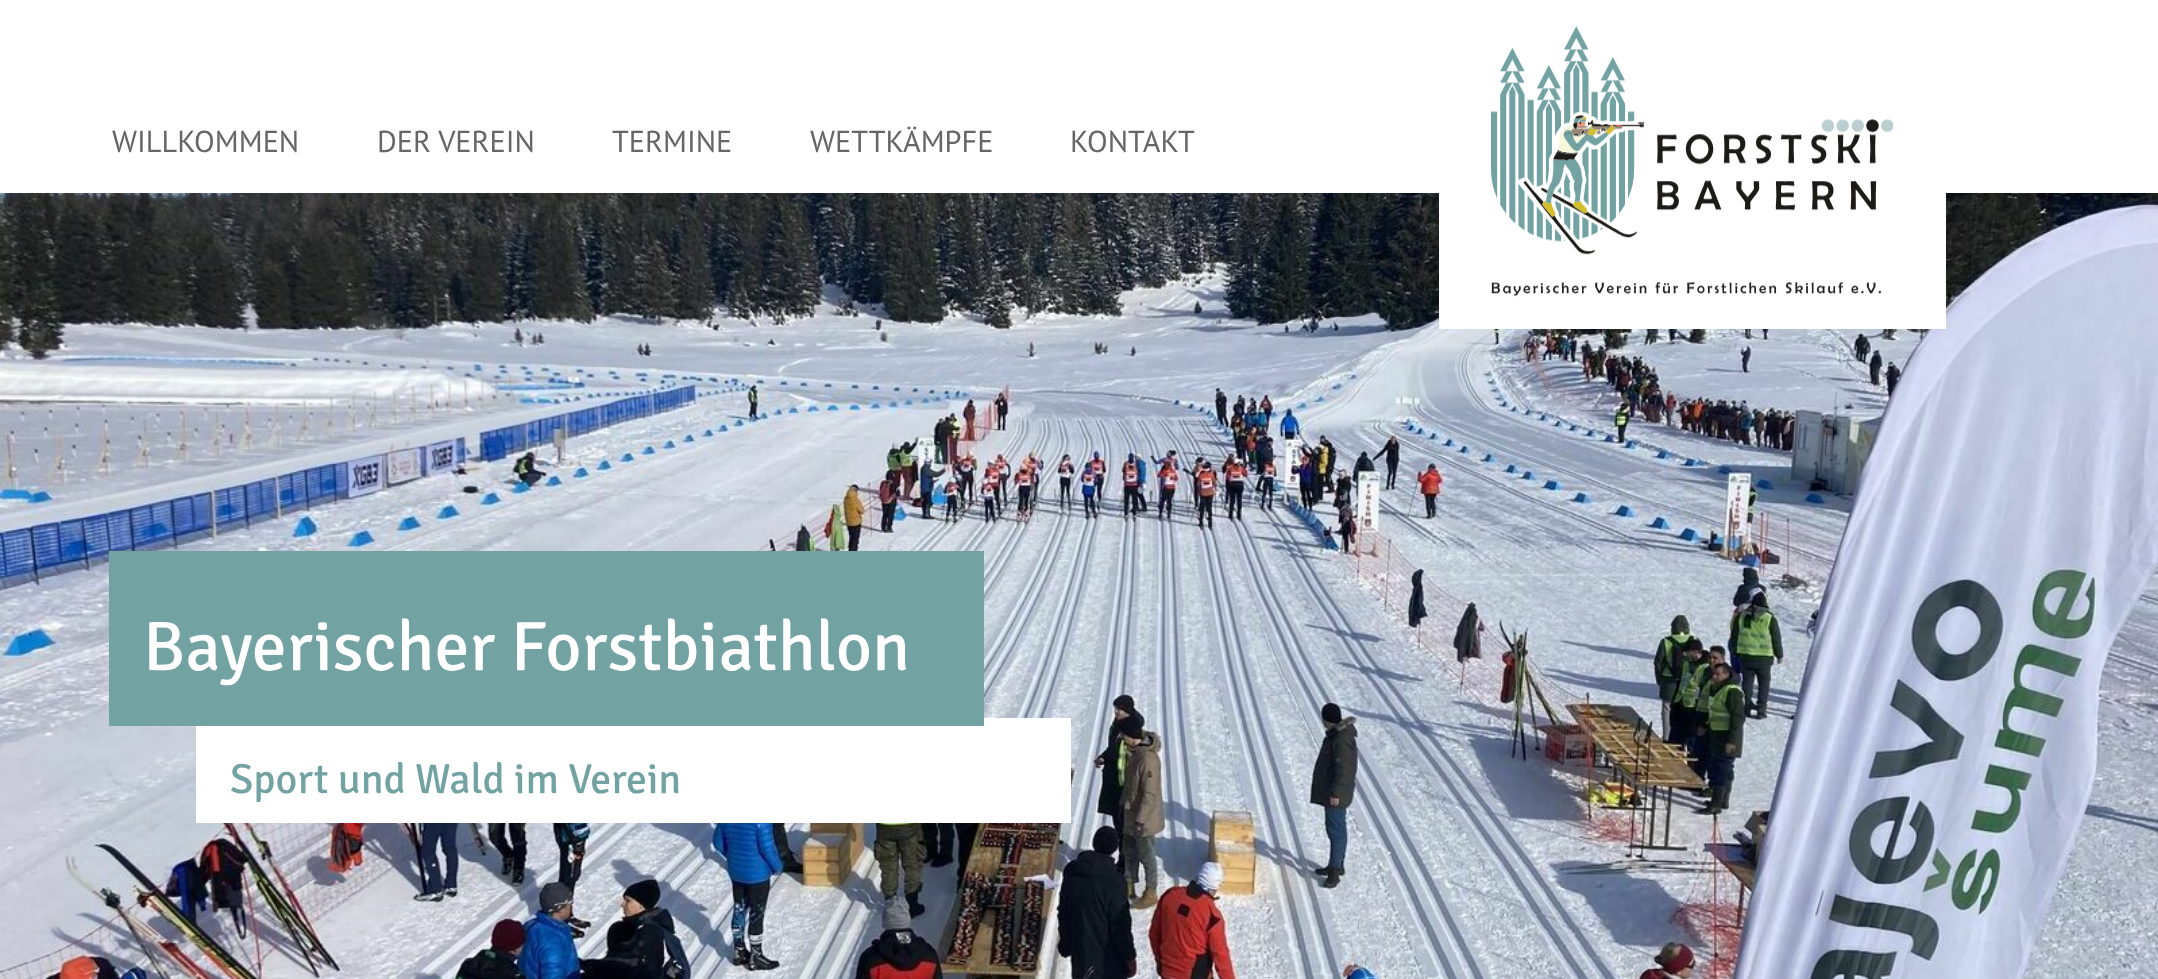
<!DOCTYPE html>
<meta charset="utf-8">
<style>body { margin: 0 } canvas { display: block }</style>
<canvas id="canvas" width="2158" height="979"></canvas>
<img id="img1" src="img_02.png" hidden>
<img id="img2" src="img_01.png" hidden>
<script>
window.onload = function () {
	const canvas = document.getElementById("canvas");
	const ctx = canvas.getContext("2d");
	ctx.miterLimit = 4;
	ctx.fontKerning = "normal";
	function txt(s, x, y) {
		ctx.fillText(s, x, y);
	}
	function fill(x, y, w, h) {
		ctx.fillRect(x, y, w, h);
	}
	function img(id, x, y, w, h) {
		ctx.drawImage(document.getElementById(id), x, y, w, h);
	}

	ctx.fillStyle = "#FFFFFF";
	fill(0, 0, 2158, 979);
	img("img1", 0, 193, 2158, 786);
	fill(1439, 193, 507, 136);
	img("img2", 1491, 26, 403, 271);
	fill(196, 718, 875, 105);
	ctx.fillStyle = "#73A2A3";
	fill(109, 551, 875, 175);
	ctx.font = "30.25px PT Sans";
	ctx.fillStyle = "#666666";
	txt("WILLKOMMEN", 112, 152);
	txt("DER VEREIN", 377, 152);
	txt("TERMINE", 612, 152);
	txt("WETTKÄMPFE", 810, 152);
	txt("KONTAKT", 1070, 152);
	ctx.font = "70px Signika";
	ctx.fillStyle = "#FFFFFF";
	txt("Bayerischer Forstbiathlon", 143, 670);
	ctx.font = "42px Signika";
	ctx.fillStyle = "#73A2A3";
	txt("Sport und Wald im Verein", 230, 793);
};
</script>
